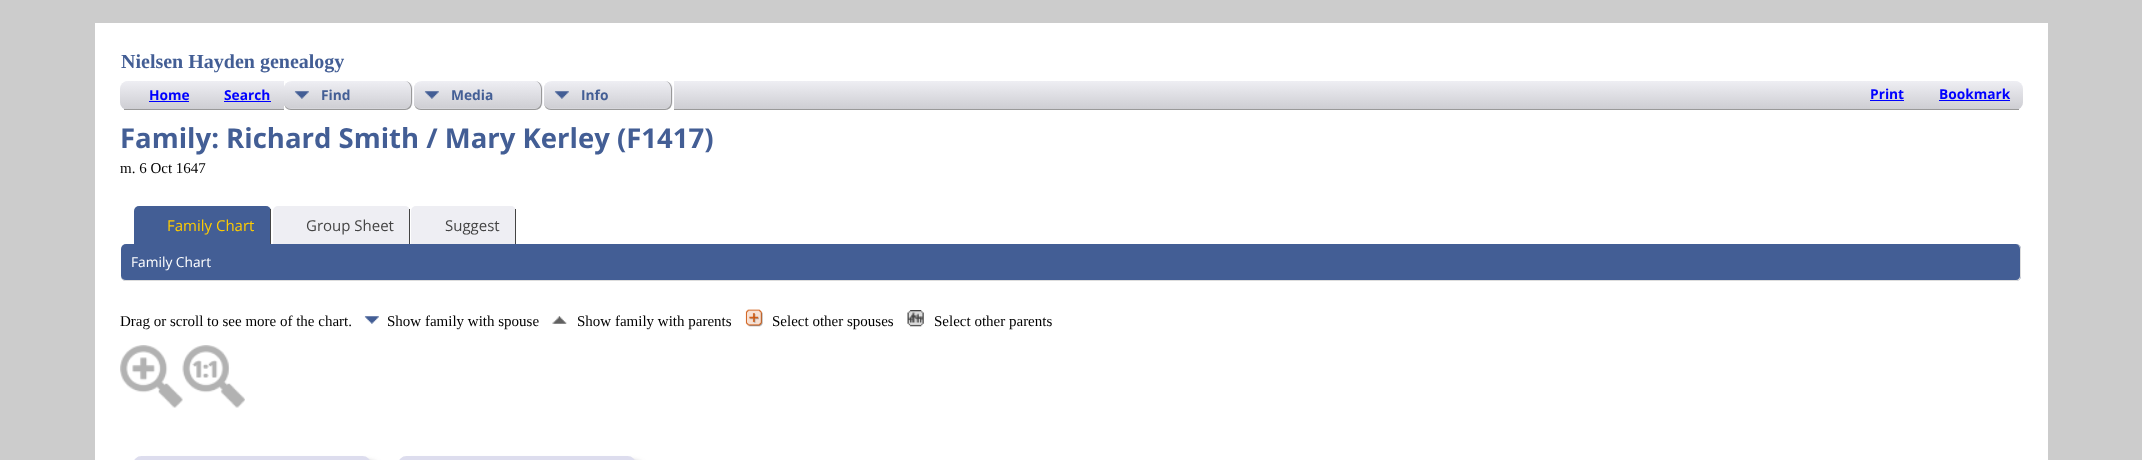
<!DOCTYPE html>
<meta charset="utf-8">
<style>body { margin: 0 } canvas { display: block }</style>
<canvas id="canvas" width="2142" height="460"></canvas>
<img id="img1" src="img_01.png" hidden>
<img id="img2" src="img_02.png" hidden>
<img id="img3" src="img_03.png" hidden>
<img id="img4" src="img_04.png" hidden>
<img id="img5" src="img_05.png" hidden>
<img id="img6" src="img_06.png" hidden>
<img id="img7" src="img_07.png" hidden>
<img id="img8" src="img_08.png" hidden>
<img id="img9" src="img_09.png" hidden>
<script>
window.onload = function () {
	const canvas = document.getElementById("canvas");
	const ctx = canvas.getContext("2d");
	ctx.miterLimit = 4;
	ctx.fontKerning = "normal";
	function txt(s, x, y) {
		ctx.fillText(s, x, y);
	}
	function fill(x, y, w, h) {
		ctx.fillRect(x, y, w, h);
	}
	function round(x, y, w, h, r) {
		ctx.beginPath();
		ctx.roundRect(x, y, w, h, r);
		ctx.fill();
	}
	function img(id, x, y, w, h) {
		ctx.drawImage(document.getElementById(id), x, y, w, h);
	}
	let gradient;

	ctx.fillStyle = "#CCCCCC";
	fill(0, 0, 2142, 460);
	ctx.fillStyle = "#FFFFFF";
	fill(95, 23, 1953, 437);
	ctx.fillStyle = "#EEEEF3";
	round(120, 81, 1903, 29, 8);
	ctx.save();
	ctx.beginPath();
	ctx.roundRect(120, 81, 1903, 29, 8);
	ctx.clip();
	gradient = ctx.createLinearGradient(1071, 81, 1071, 109);
	gradient.addColorStop(0, "#EEEEF3");
	gradient.addColorStop(1, "#CECED3");
	ctx.fillStyle = gradient;
	ctx.beginPath();
	ctx.roundRect(120, 81, 1903, 28, [8, 8, 0, 0]);
	ctx.fill();
	ctx.restore();
	ctx.fillStyle = "#999999";
	fill(124, 109, 1895, 1);
	ctx.fillStyle = "#0000FF";
	fill(149, 101, 40, 1);
	fill(224, 101, 47, 1);
	ctx.fillStyle = "#FFFFFF";
	fill(284, 81, 390, 29);
	ctx.fillStyle = "#EEEEF3";
	round(284, 81, 129, 29, 8);
	img("img1", 284, 82, 128, 27);
	ctx.fillStyle = "#999999";
	ctx.beginPath();
	ctx.moveTo(291, 81);
	ctx.lineTo(405, 81);
	ctx.bezierCurveTo(409, 81, 412, 85, 412, 89);
	ctx.lineTo(412, 102);
	ctx.bezierCurveTo(412, 107, 409, 110, 405, 110);
	ctx.lineTo(291, 110);
	ctx.bezierCurveTo(287, 110, 284, 107, 284, 102);
	ctx.lineTo(284, 89);
	ctx.bezierCurveTo(284, 85, 287, 81, 291, 81);
	ctx.closePath();
	ctx.moveTo(291, 81);
	ctx.lineTo(405, 81);
	ctx.bezierCurveTo(408, 81, 411, 85, 411, 89);
	ctx.lineTo(411, 102);
	ctx.bezierCurveTo(411, 106, 408, 109, 405, 109);
	ctx.lineTo(291, 109);
	ctx.bezierCurveTo(287, 109, 284, 106, 284, 102);
	ctx.lineTo(284, 89);
	ctx.bezierCurveTo(284, 85, 287, 81, 291, 81);
	ctx.closePath();
	ctx.fill("evenodd");
	ctx.fillStyle = "#EEEEF3";
	round(414, 81, 129, 29, 8);
	img("img2", 414, 82, 128, 27);
	ctx.fillStyle = "#999999";
	ctx.beginPath();
	ctx.moveTo(421, 81);
	ctx.lineTo(535, 81);
	ctx.bezierCurveTo(539, 81, 542, 85, 542, 89);
	ctx.lineTo(542, 102);
	ctx.bezierCurveTo(542, 107, 539, 110, 535, 110);
	ctx.lineTo(421, 110);
	ctx.bezierCurveTo(417, 110, 414, 107, 414, 102);
	ctx.lineTo(414, 89);
	ctx.bezierCurveTo(414, 85, 417, 81, 421, 81);
	ctx.closePath();
	ctx.moveTo(421, 81);
	ctx.lineTo(535, 81);
	ctx.bezierCurveTo(538, 81, 541, 85, 541, 89);
	ctx.lineTo(541, 102);
	ctx.bezierCurveTo(541, 106, 538, 109, 535, 109);
	ctx.lineTo(421, 109);
	ctx.bezierCurveTo(417, 109, 414, 106, 414, 102);
	ctx.lineTo(414, 89);
	ctx.bezierCurveTo(414, 85, 417, 81, 421, 81);
	ctx.closePath();
	ctx.fill("evenodd");
	ctx.fillStyle = "#EEEEF3";
	round(544, 81, 129, 29, 8);
	img("img3", 544, 82, 128, 27);
	ctx.fillStyle = "#999999";
	ctx.beginPath();
	ctx.moveTo(551, 81);
	ctx.lineTo(665, 81);
	ctx.bezierCurveTo(669, 81, 672, 85, 672, 89);
	ctx.lineTo(672, 102);
	ctx.bezierCurveTo(672, 107, 669, 110, 665, 110);
	ctx.lineTo(551, 110);
	ctx.bezierCurveTo(547, 110, 544, 107, 544, 102);
	ctx.lineTo(544, 89);
	ctx.bezierCurveTo(544, 85, 547, 81, 551, 81);
	ctx.closePath();
	ctx.moveTo(551, 81);
	ctx.lineTo(665, 81);
	ctx.bezierCurveTo(668, 81, 671, 85, 671, 89);
	ctx.lineTo(671, 102);
	ctx.bezierCurveTo(671, 106, 668, 109, 665, 109);
	ctx.lineTo(551, 109);
	ctx.bezierCurveTo(547, 109, 544, 106, 544, 102);
	ctx.lineTo(544, 89);
	ctx.bezierCurveTo(544, 85, 547, 81, 551, 81);
	ctx.closePath();
	ctx.fill("evenodd");
	ctx.fillStyle = "#0000FF";
	fill(1870, 100, 34, 1);
	fill(1939, 100, 71, 1);
	ctx.fillStyle = "#435E95";
	ctx.beginPath();
	ctx.roundRect(134, 206, 137, 38, [5, 5, 0, 0]);
	ctx.fill();
	ctx.fillStyle = "#444444";
	fill(270, 209, 1, 35);
	ctx.fillStyle = "#EEEEF3";
	ctx.beginPath();
	ctx.roundRect(273, 206, 137, 38, [5, 5, 0, 0]);
	ctx.fill();
	ctx.fillStyle = "#444444";
	fill(409, 209, 1, 35);
	ctx.fillStyle = "#EEEEF3";
	ctx.beginPath();
	ctx.roundRect(411, 206, 105, 38, [5, 5, 0, 0]);
	ctx.fill();
	ctx.fillStyle = "#444444";
	fill(515, 209, 1, 35);
	ctx.fillStyle = "#435E95";
	round(121, 244, 1900, 37, 5);
	ctx.fillStyle = "#DDDDDD";
	ctx.beginPath();
	ctx.moveTo(126, 244);
	ctx.lineTo(2016, 244);
	ctx.bezierCurveTo(2019, 244, 2021, 246, 2021, 249);
	ctx.lineTo(2021, 276);
	ctx.bezierCurveTo(2021, 279, 2019, 281, 2016, 281);
	ctx.lineTo(126, 281);
	ctx.bezierCurveTo(123, 281, 121, 279, 121, 276);
	ctx.lineTo(121, 249);
	ctx.bezierCurveTo(121, 246, 123, 244, 126, 244);
	ctx.closePath();
	ctx.moveTo(126, 244);
	ctx.lineTo(2016, 244);
	ctx.bezierCurveTo(2018, 244, 2020, 246, 2020, 249);
	ctx.lineTo(2020, 276);
	ctx.bezierCurveTo(2020, 278, 2018, 280, 2016, 280);
	ctx.lineTo(126, 280);
	ctx.bezierCurveTo(123, 280, 121, 278, 121, 276);
	ctx.lineTo(121, 249);
	ctx.bezierCurveTo(121, 246, 123, 244, 126, 244);
	ctx.closePath();
	ctx.fill("evenodd");
	img("img4", 364, 316, 15, 8);
	img("img5", 552, 316, 15, 8);
	img("img6", 745, 309, 18, 18);
	img("img7", 907, 310, 17, 17);
	img("img8", 120, 345, 63, 63);
	img("img9", 182, 345, 63, 63);
	ctx.fillStyle = "#666666";
	ctx.filter = "blur(3px)";
	ctx.beginPath();
	ctx.roundRect(139, 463, 239, 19, 13);
	ctx.fill();
	ctx.filter = "none";
	ctx.fillStyle = "#DDDDEE";
	round(133, 456, 238, 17, 13);
	ctx.fillStyle = "#666666";
	ctx.filter = "blur(3px)";
	ctx.beginPath();
	ctx.roundRect(404, 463, 239, 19, 13);
	ctx.fill();
	ctx.filter = "none";
	ctx.fillStyle = "#DDDDEE";
	round(398, 456, 238, 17, 13);
	ctx.font = "bold 20px Liberation Serif";
	ctx.fillStyle = "#435E95";
	txt("Nielsen Hayden genealogy", 121, 68);
	ctx.font = "bold 13.75px Open Sans";
	ctx.fillStyle = "#0000FF";
	txt("Home", 149, 100);
	txt("Search", 224, 100);
	ctx.fillStyle = "#435E95";
	txt("Find", 321, 100);
	txt("Media", 451, 100);
	txt("Info", 581, 100);
	ctx.fillStyle = "#0000FF";
	txt("Print", 1870, 99);
	txt("Bookmark", 1939, 99);
	ctx.font = "bold 27.5px Open Sans";
	ctx.fillStyle = "#435E95";
	txt("Family: Richard Smith / Mary Kerley (F1417)", 120, 148);
	ctx.font = "15px Liberation Serif";
	ctx.fillStyle = "#000000";
	txt("m. 6 Oct 1647", 120, 173);
	ctx.font = "15px Open Sans";
	ctx.fillStyle = "#FFCC00";
	txt("Family Chart", 167, 231);
	ctx.fillStyle = "#444444";
	txt("Group Sheet", 306, 231);
	txt("Suggest", 445, 231);
	ctx.font = "13.75px Open Sans";
	ctx.fillStyle = "#FFFFFF";
	txt("Family Chart", 131, 267);
	ctx.font = "15px Liberation Serif";
	ctx.fillStyle = "#000000";
	txt("Drag or scroll to see more of the chart.", 120, 326);
	txt("Show family with spouse", 387, 326);
	txt("Show family with parents", 577, 326);
	txt("Select other spouses", 772, 326);
	txt("Select other parents", 934, 326);
};
</script>
